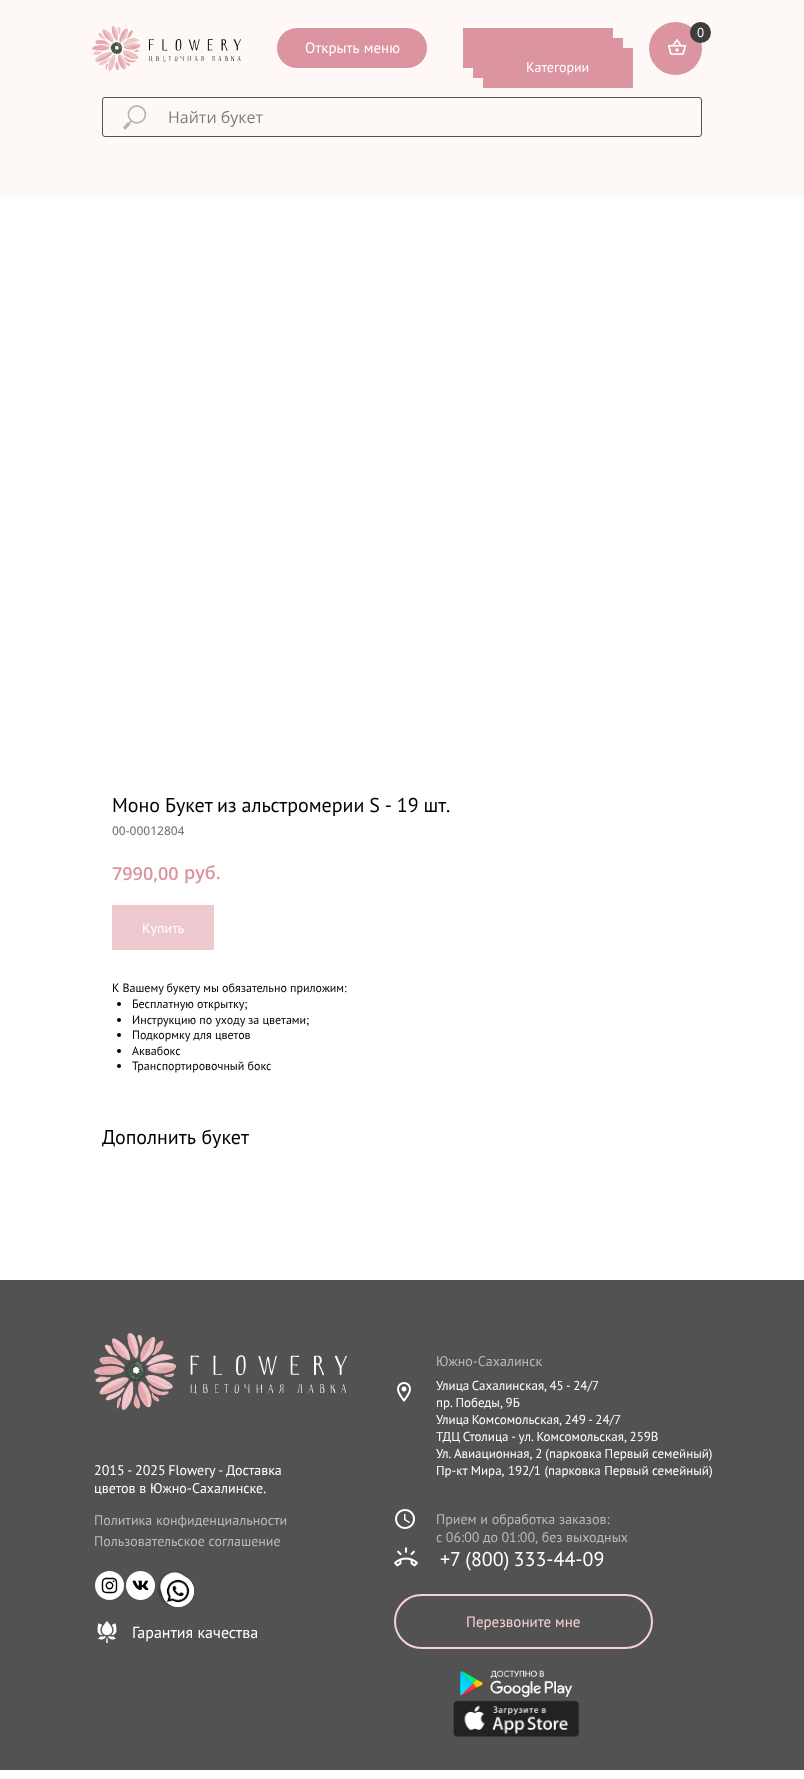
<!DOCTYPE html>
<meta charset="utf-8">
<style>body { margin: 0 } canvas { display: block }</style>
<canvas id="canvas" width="804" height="1779"></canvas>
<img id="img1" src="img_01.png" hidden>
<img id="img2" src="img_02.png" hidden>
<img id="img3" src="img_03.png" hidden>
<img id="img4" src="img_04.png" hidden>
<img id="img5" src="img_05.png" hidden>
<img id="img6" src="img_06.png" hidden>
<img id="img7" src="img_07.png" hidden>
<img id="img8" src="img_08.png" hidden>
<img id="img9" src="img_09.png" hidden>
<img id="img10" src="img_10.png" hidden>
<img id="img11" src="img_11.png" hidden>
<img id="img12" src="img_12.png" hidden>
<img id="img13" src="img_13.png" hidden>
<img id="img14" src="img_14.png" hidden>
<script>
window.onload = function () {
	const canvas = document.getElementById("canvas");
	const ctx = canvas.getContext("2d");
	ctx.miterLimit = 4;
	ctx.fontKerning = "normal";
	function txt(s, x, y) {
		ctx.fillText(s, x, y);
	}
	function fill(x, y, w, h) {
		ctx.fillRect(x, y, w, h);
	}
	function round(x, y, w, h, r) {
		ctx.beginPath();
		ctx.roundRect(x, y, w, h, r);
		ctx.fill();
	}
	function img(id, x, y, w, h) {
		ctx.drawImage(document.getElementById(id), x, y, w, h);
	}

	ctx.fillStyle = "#FFFFFF";
	fill(0, 0, 804, 1779);
	ctx.fillStyle = "#FEF9F7";
	fill(0, 0, 804, 197);
	ctx.fillStyle = "#DC94A0";
	ctx.beginPath();
	ctx.arc(675.5, 48.5, 26.5, 0, Math.PI * 2);
	ctx.fill();
	img("img1", 92, 26, 149, 45);
	ctx.fillStyle = "#3D3D3D";
	ctx.beginPath();
	ctx.arc(700.5, 32.5, 10.5, 0, Math.PI * 2);
	ctx.fill();
	ctx.fillStyle = "#DC94A0";
	fill(463, 28, 150, 40);
	round(277, 28, 150, 40, 20);
	fill(473, 38, 150, 40);
	img("img2", 667, 39, 20, 16);
	fill(483, 48, 150, 40);
	ctx.beginPath();
	ctx.roundRect(102.5, 97.5, 599, 39, 2.5);
	ctx.strokeStyle = "#525252";
	ctx.stroke();
	img("img3", 123, 105, 24, 25);
	ctx.fillStyle = "#EECAD0";
	fill(112, 905, 102, 45);
	ctx.fillStyle = "#000000";
	ctx.beginPath();
	ctx.arc(119, 1004, 2, 0, Math.PI * 2);
	ctx.fill();
	ctx.beginPath();
	ctx.arc(119, 1020, 2, 0, Math.PI * 2);
	ctx.fill();
	ctx.beginPath();
	ctx.arc(119, 1035, 2, 0, Math.PI * 2);
	ctx.fill();
	ctx.beginPath();
	ctx.arc(119, 1051, 2, 0, Math.PI * 2);
	ctx.fill();
	ctx.beginPath();
	ctx.arc(119, 1066, 2, 0, Math.PI * 2);
	ctx.fill();
	ctx.fillStyle = "#525252";
	fill(0, 1280, 804, 490);
	img("img4", 94, 1333, 253, 77);
	img("img5", 397, 1382, 14, 20);
	img("img6", 395, 1509, 20, 20);
	img("img7", 394, 1547, 24, 20);
	img("img8", 95, 1571, 29, 29);
	img("img9", 126, 1571, 29, 29);
	img("img10", 157, 1571, 36, 36);
	ctx.fillStyle = "#FFFFFF";
	ctx.beginPath();
	ctx.arc(178, 1591, 16, 0, Math.PI * 2);
	ctx.fill();
	img("img11", 162, 1576, 32, 31);
	img("img12", 97, 1621, 20, 22);
	ctx.beginPath();
	ctx.roundRect(395, 1595, 257, 53, 26.5);
	ctx.strokeStyle = "#F7D3D3";
	ctx.lineWidth = 2;
	ctx.stroke();
	img("img13", 460, 1670, 113, 28);
	img("img14", 453, 1700, 126, 37);
	ctx.font = "13px PT Sans";
	txt("0", 697, 37);
	ctx.wordSpacing = "1px";
	ctx.font = "15px PT Sans";
	txt("Открыть меню", 305, 53);
	ctx.wordSpacing = "0px";
	ctx.font = "14px PT Sans";
	txt("Категории", 526, 72);
	ctx.font = "16px Open Sans";
	ctx.fillStyle = "#7F7D7C";
	txt("Найти букет", 168, 123);
	ctx.wordSpacing = "-0.5px";
	ctx.font = "20px PT Sans";
	ctx.fillStyle = "#000000";
	txt("Моно Букет из альстромерии S - 19 шт.", 112, 812);
	ctx.wordSpacing = "0px";
	ctx.font = "500 12px Open Sans";
	ctx.fillStyle = "#777777";
	txt("00-00012804", 112, 835);
	ctx.font = "600 18px Open Sans";
	ctx.fillStyle = "#DC94A0";
	txt("7990,00", 112, 880);
	txt("руб.", 184, 879);
	ctx.font = "14px PT Sans";
	ctx.fillStyle = "#FFFFFF";
	txt("Купить", 142, 933);
	ctx.font = "12px PT Sans";
	ctx.fillStyle = "#000000";
	txt("К Вашему букету мы обязательно приложим:", 112, 992);
	txt("Бесплатную открытку;", 132, 1008);
	txt("Инструкцию по уходу за цветами;", 132, 1024);
	txt("Подкормку для цветов", 132, 1039);
	txt("Аквабокс", 132, 1055);
	txt("Транспортировочный бокс", 132, 1070);
	ctx.wordSpacing = "1px";
	ctx.font = "20px PT Sans";
	txt("Дополнить букет", 102, 1144);
	ctx.wordSpacing = "0px";
	ctx.font = "14px PT Sans";
	ctx.fillStyle = "#BABABA";
	txt("Южно-Сахалинск", 436, 1366);
	ctx.wordSpacing = "-1px";
	ctx.font = "13px PT Sans";
	ctx.fillStyle = "#FFFFFF";
	txt("Улица Сахалинская, 45 - 24/7", 436, 1390);
	ctx.wordSpacing = "-0.75px";
	txt("пр. Победы, 9Б", 436, 1407);
	ctx.wordSpacing = "-1px";
	txt("Улица Комсомольская, 249 - 24/7", 436, 1424);
	ctx.wordSpacing = "-0.75px";
	txt("ТДЦ Столица - ул. Комсомольская, 259В", 436, 1441);
	ctx.wordSpacing = "-0.5px";
	txt("Ул. Авиационная, 2 (парковка Первый семейный)", 436, 1458);
	ctx.wordSpacing = "0px";
	txt("Пр-кт Мира, 192/1 (парковка Первый семейный)", 436, 1475);
	ctx.wordSpacing = "-1px";
	ctx.font = "14px PT Sans";
	txt("2015 - 2025 Flowery - Доставка", 94, 1475);
	ctx.wordSpacing = "0px";
	txt("цветов в Южно-Сахалинске.", 94, 1493);
	ctx.fillStyle = "#BABABA";
	txt("Политика конфиденциальности", 94, 1525);
	txt("Прием и обработка заказов:", 436, 1524);
	ctx.wordSpacing = "-0.25px";
	txt("с 06:00 до 01:00, без выходных", 436, 1542);
	ctx.wordSpacing = "0px";
	txt("Пользовательское соглашение", 94, 1546);
	ctx.wordSpacing = "-1px";
	ctx.font = "20px PT Sans";
	ctx.fillStyle = "#FFFFFF";
	txt("+7 (800) 333-44-09", 440, 1566);
	ctx.wordSpacing = "0px";
	ctx.font = "16px PT Sans";
	txt("Гарантия качества", 132, 1638);
	ctx.font = "15px PT Sans";
	ctx.fillStyle = "#F7D3D3";
	txt("Перезвоните мне", 466, 1627);
};
</script>
